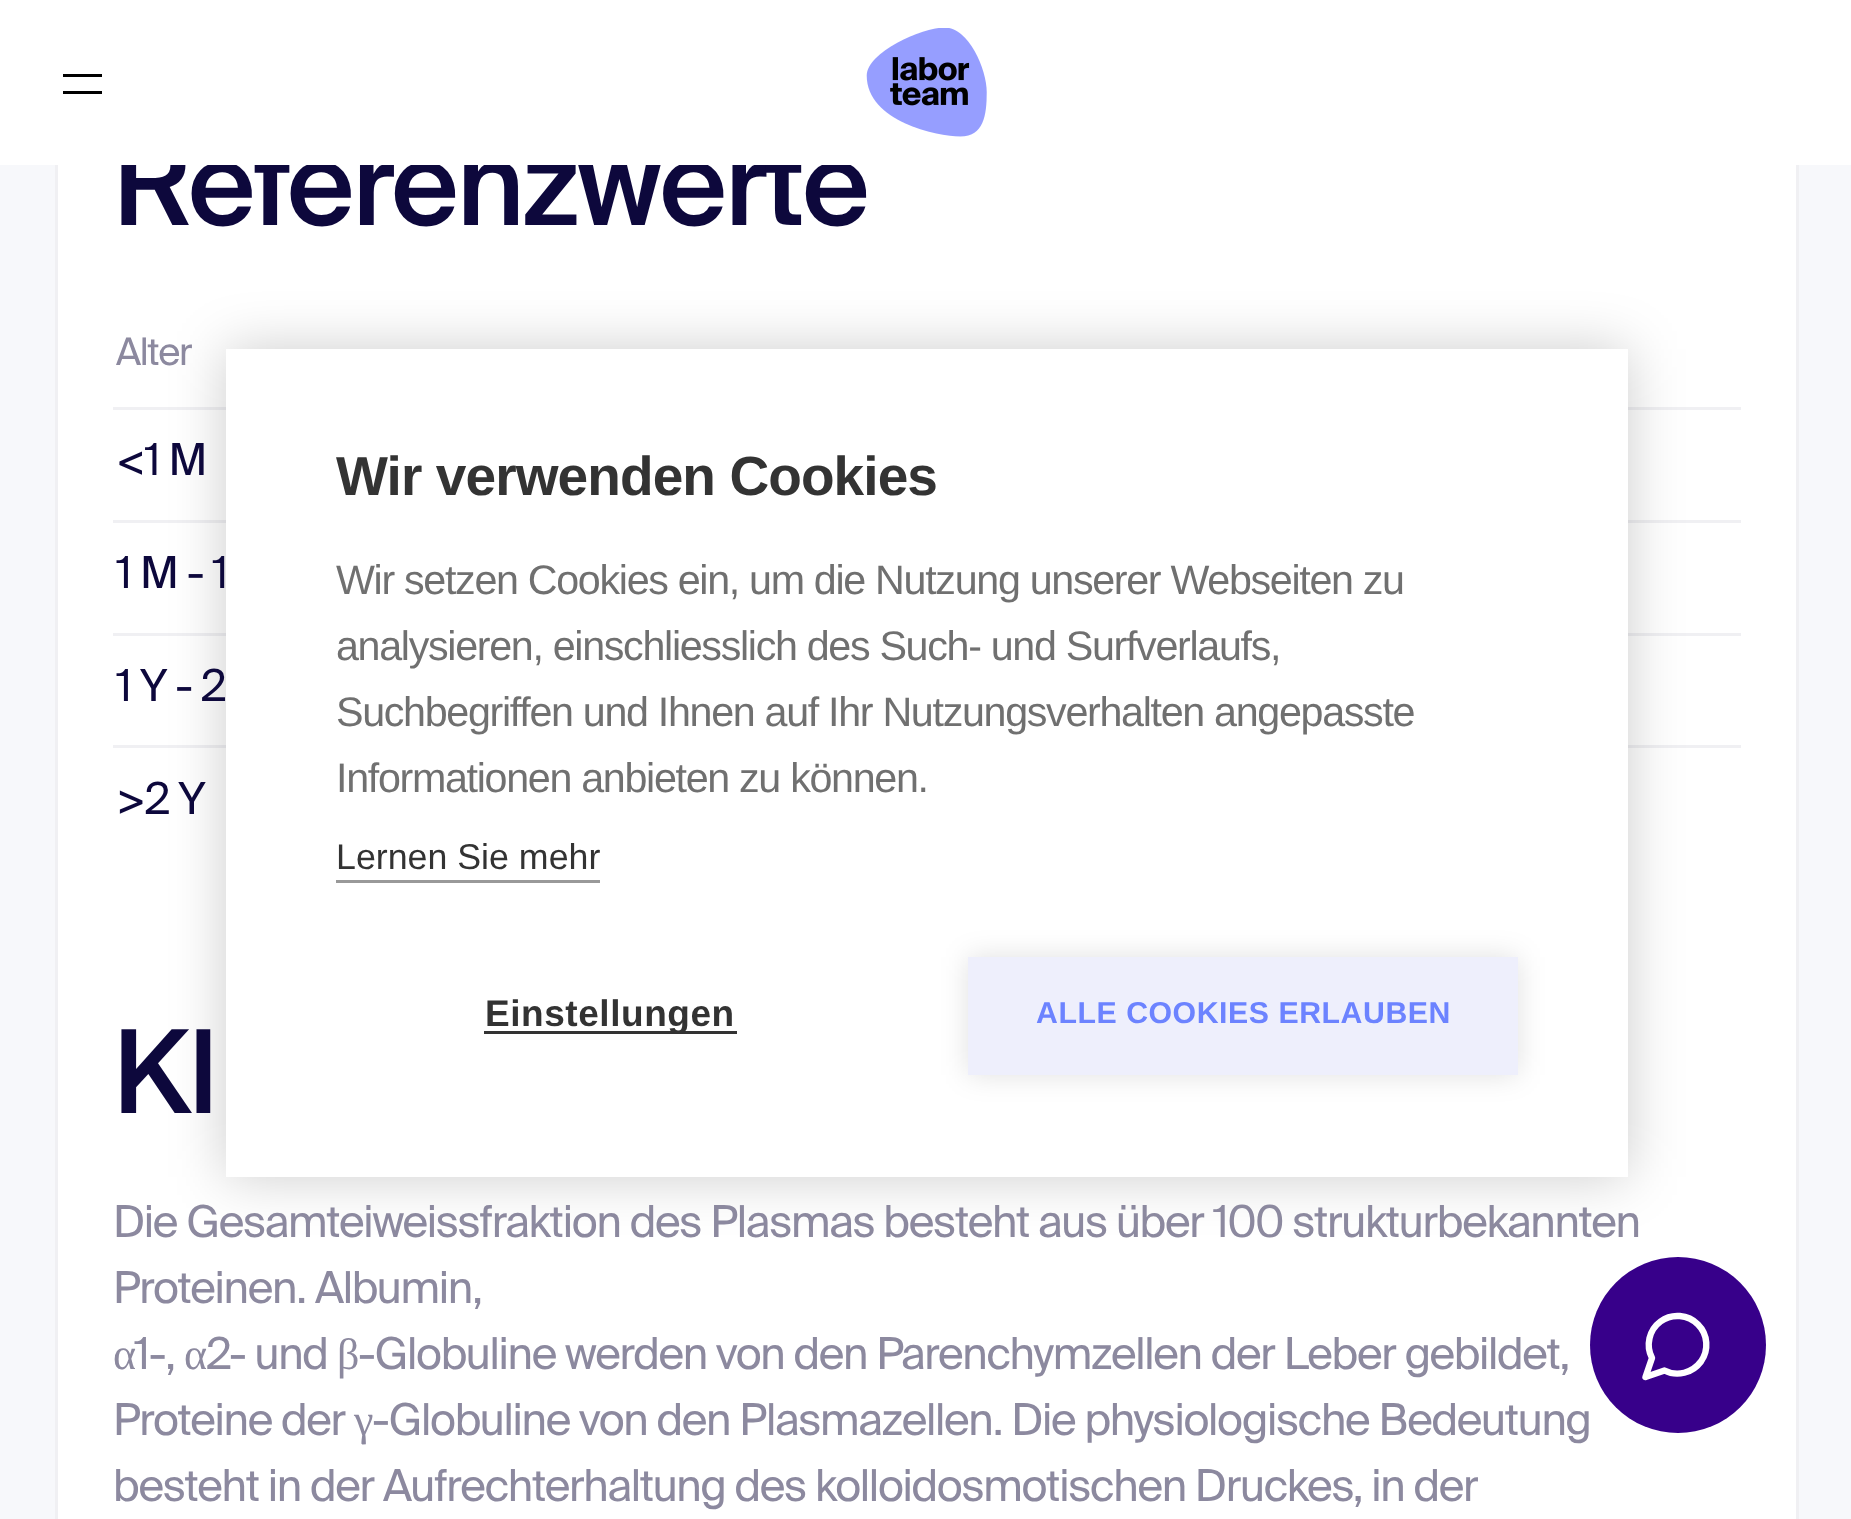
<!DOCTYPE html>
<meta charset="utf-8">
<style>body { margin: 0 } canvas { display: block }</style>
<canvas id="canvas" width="1851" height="1519"></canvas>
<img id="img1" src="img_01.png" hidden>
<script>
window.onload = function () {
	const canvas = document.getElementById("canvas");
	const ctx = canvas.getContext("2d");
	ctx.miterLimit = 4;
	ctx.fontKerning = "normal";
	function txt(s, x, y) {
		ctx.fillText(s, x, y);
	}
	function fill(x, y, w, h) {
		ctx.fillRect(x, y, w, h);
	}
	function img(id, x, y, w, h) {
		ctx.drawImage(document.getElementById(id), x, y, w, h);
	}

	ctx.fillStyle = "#F7F8FB";
	fill(0, 0, 1851, 1519);
	ctx.fillStyle = "#FFFFFF";
	fill(58, 165, 1738, 1354);
	ctx.fillStyle = "#F0F0F3";
	fill(113, 407, 113, 3);
	fill(113, 520, 113, 3);
	fill(113, 633, 113, 3);
	fill(113, 745, 113, 3);
	ctx.strokeStyle = "#F0F0F3";
	ctx.lineWidth = 3;
	ctx.strokeRect(56.5, -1.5, 1741, 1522);
	fill(1628, 407, 113, 3);
	fill(1628, 520, 113, 3);
	fill(1628, 633, 113, 3);
	fill(1628, 745, 113, 3);
	ctx.fillStyle = "#37008A";
	ctx.beginPath();
	ctx.arc(1678, 1345, 88, 0, Math.PI * 2);
	ctx.fill();
	ctx.fillStyle = "rgba(0, 0, 0, 0.2)";
	ctx.filter = "blur(27.5px)";
	ctx.beginPath();
	ctx.rect(226, 349, 1402, 828);
	ctx.fill();
	ctx.filter = "none";
	ctx.fillStyle = "#FFFFFF";
	fill(226, 349, 1402, 828);
	ctx.fillStyle = "#999999";
	fill(336, 880, 264, 3);
	ctx.fillStyle = "#333333";
	fill(484, 1031, 253, 3);
	ctx.fillStyle = "rgba(0, 0, 0, 0.12)";
	ctx.filter = "blur(14px)";
	ctx.beginPath();
	ctx.rect(968, 957, 550, 118);
	ctx.fill();
	ctx.filter = "none";
	ctx.fillStyle = "#EEEFFC";
	fill(968, 957, 550, 118);
	ctx.beginPath();
	ctx.moveTo(1664.5, 1370.5);
	ctx.bezierCurveTo(1677, 1377, 1692.5, 1373, 1701, 1361.5);
	ctx.bezierCurveTo(1709, 1350, 1708, 1334.5, 1698, 1324.5);
	ctx.bezierCurveTo(1688, 1314.5, 1672, 1313, 1660.5, 1321.5);
	ctx.bezierCurveTo(1649, 1330, 1645.5, 1345.5, 1652, 1358);
	ctx.lineTo(1645.5, 1377);
	ctx.closePath();
	ctx.strokeStyle = "#FFFFFF";
	ctx.lineWidth = 6.4;
	ctx.lineCap = "round";
	ctx.lineJoin = "round";
	ctx.stroke();
	ctx.letterSpacing = "-2.25px";
	ctx.font = "500 115.5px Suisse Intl";
	ctx.fillStyle = "#0D083C";
	txt("Referenzwerte", 113, 225);
	ctx.fillStyle = "#FFFFFF";
	fill(0, 0, 1851, 165);
	ctx.fillStyle = "#000000";
	fill(63, 91, 39, 3);
	fill(63, 74, 39, 3);
	img("img1", 866, 28, 121, 109);
	ctx.letterSpacing = "-1.32px";
	ctx.font = "38px Suisse Intl";
	ctx.fillStyle = "#8C899F";
	txt("Alter", 116, 365);
	ctx.font = "44px Suisse Intl";
	ctx.fillStyle = "#0D083C";
	txt("<1 M", 116, 475);
	txt("1 M - 1", 116, 588);
	txt("1 Y - 2", 116, 701);
	txt(">2 Y", 116, 814);
	ctx.letterSpacing = "-2.25px";
	ctx.font = "500 115.5px Suisse Intl";
	txt("Kl", 113, 1113);
	ctx.letterSpacing = "-1.32px";
	ctx.font = "44px Suisse Intl";
	ctx.fillStyle = "#8C899F";
	txt("Die Gesamteiweissfraktion des Plasmas besteht aus über 100 strukturbekannten", 113, 1237);
	txt("Proteinen. Albumin,", 113, 1303);
	ctx.font = "44px Liberation Serif";
	txt("α", 113, 1369);
	ctx.font = "44px Suisse Intl";
	txt("1-,", 134, 1369);
	ctx.font = "44px Liberation Serif";
	txt("α", 184, 1369);
	ctx.font = "44px Suisse Intl";
	txt("2- und", 206, 1369);
	ctx.font = "44px Liberation Serif";
	txt("β", 337, 1369);
	ctx.font = "44px Suisse Intl";
	txt("-Globuline werden von den Parenchymzellen der Leber gebildet,", 358, 1369);
	txt("Proteine der", 113, 1435);
	ctx.font = "44px Liberation Serif";
	txt("γ", 354, 1435);
	ctx.font = "44px Suisse Intl";
	txt("-Globuline von den Plasmazellen. Die physiologische Bedeutung", 372, 1435);
	txt("besteht in der Aufrechterhaltung des kolloidosmotischen Druckes, in der", 113, 1501);
	ctx.letterSpacing = "-0.9px";
	ctx.font = "bold 55px Liberation Sans";
	ctx.fillStyle = "#333333";
	txt("Wir verwenden Cookies", 336, 495);
	ctx.letterSpacing = "-1.32px";
	ctx.font = "41.25px Liberation Sans";
	ctx.fillStyle = "#707070";
	txt("Wir setzen Cookies ein, um die Nutzung unserer Webseiten zu", 336, 594);
	txt("analysieren, einschliesslich des Such- und Surfverlaufs,", 336, 660);
	txt("Suchbegriffen und Ihnen auf Ihr Nutzungsverhalten angepasste", 336, 726);
	txt("Informationen anbieten zu können.", 336, 792);
	ctx.letterSpacing = "0px";
	ctx.font = "35.75px Liberation Sans";
	ctx.fillStyle = "#333333";
	txt("Lernen Sie mehr", 336, 869);
	ctx.letterSpacing = "0.55px";
	ctx.font = "bold 37px Liberation Sans";
	txt("Einstellungen", 485, 1026);
	ctx.font = "bold 30.25px Liberation Sans";
	ctx.fillStyle = "#6C83FF";
	txt("ALLE COOKIES ERLAUBEN", 1036, 1023);
};
</script>
